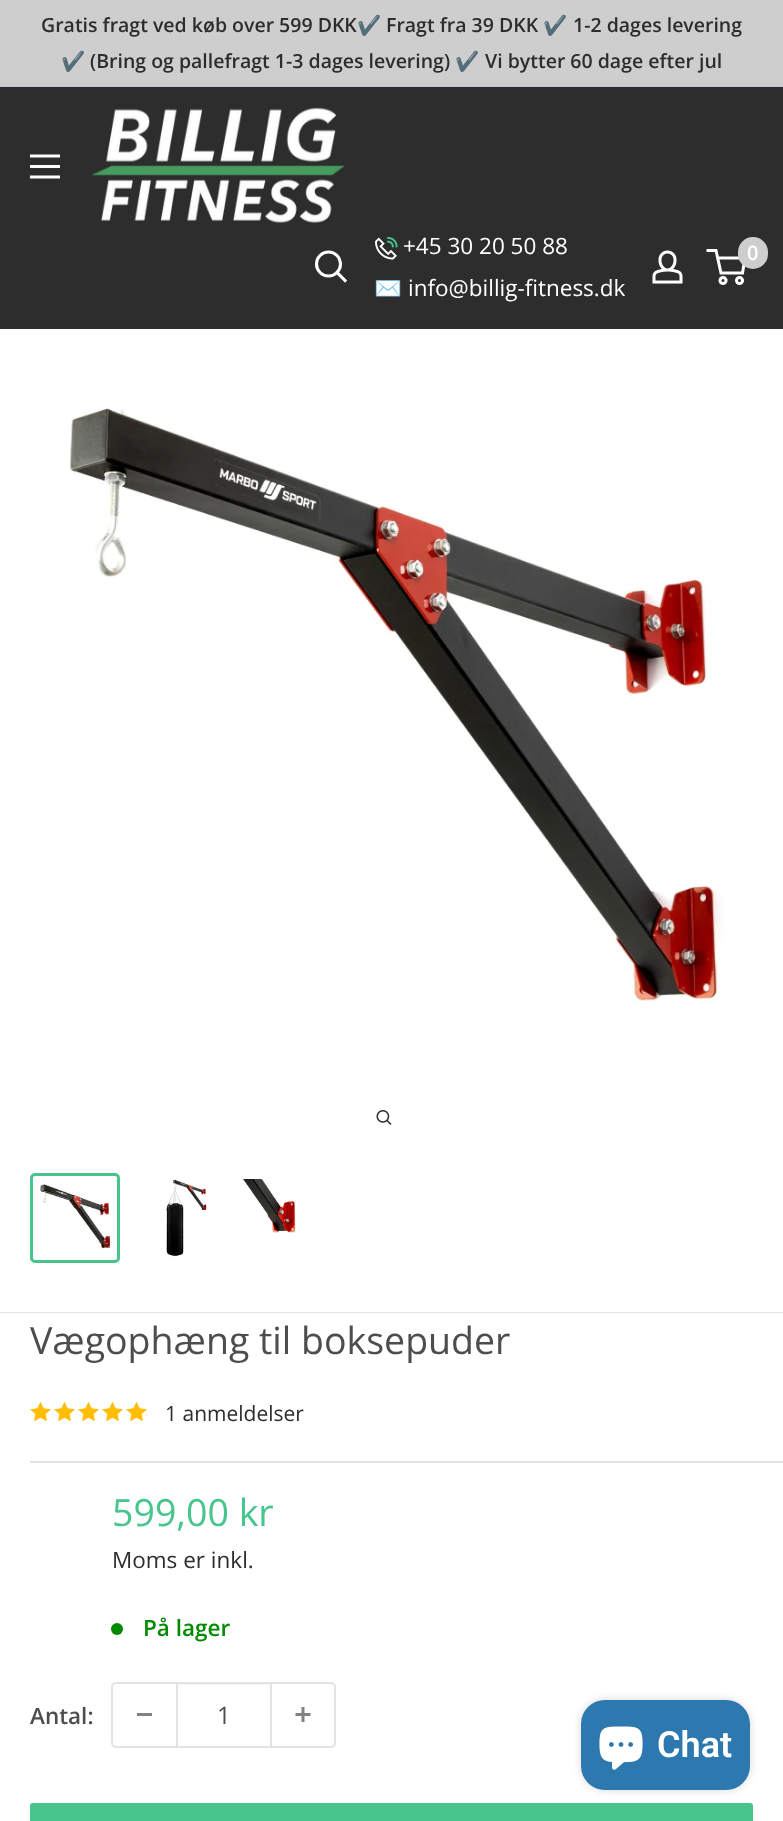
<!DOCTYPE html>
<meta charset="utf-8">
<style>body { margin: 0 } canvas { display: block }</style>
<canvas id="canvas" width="783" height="1821"></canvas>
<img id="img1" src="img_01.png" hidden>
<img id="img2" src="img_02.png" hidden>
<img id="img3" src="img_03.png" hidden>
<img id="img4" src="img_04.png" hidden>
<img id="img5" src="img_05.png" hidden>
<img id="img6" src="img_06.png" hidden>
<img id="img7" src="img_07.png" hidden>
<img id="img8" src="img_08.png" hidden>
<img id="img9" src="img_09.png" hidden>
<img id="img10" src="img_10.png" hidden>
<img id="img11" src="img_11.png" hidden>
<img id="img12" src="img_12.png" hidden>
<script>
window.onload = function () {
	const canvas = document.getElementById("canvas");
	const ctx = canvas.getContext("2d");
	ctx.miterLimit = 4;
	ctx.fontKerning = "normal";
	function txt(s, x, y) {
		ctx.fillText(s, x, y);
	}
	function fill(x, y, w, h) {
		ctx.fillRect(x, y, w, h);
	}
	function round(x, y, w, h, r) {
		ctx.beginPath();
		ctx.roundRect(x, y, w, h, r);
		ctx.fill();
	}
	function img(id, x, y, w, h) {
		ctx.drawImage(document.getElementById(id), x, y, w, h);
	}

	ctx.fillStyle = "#CECECE";
	fill(0, 0, 783, 1821);
	ctx.fillStyle = "#C1C5D8";
	fill(0, 86, 783, 1);
	ctx.fillStyle = "#2D2D2D";
	fill(0, 87, 783, 242);
	img("img1", 30, 154, 30, 25);
	img("img2", 92, 107, 253, 116);
	ctx.beginPath();
	ctx.moveTo(345, 280.5);
	ctx.lineTo(337, 272.5);
	ctx.strokeStyle = "#FFFFFF";
	ctx.lineWidth = 3.1;
	ctx.lineCap = "square";
	ctx.stroke();
	ctx.beginPath();
	ctx.arc(328.5, 264, 12, 0, Math.PI * 2);
	ctx.stroke();
	img("img3", 375, 237, 23, 23);
	img("img4", 652, 250, 31, 34);
	ctx.beginPath();
	ctx.arc(723, 280.5, 3, 0, Math.PI * 2);
	ctx.lineWidth = 3;
	ctx.stroke();
	ctx.beginPath();
	ctx.arc(739.5, 280.5, 3, 0, Math.PI * 2);
	ctx.stroke();
	ctx.beginPath();
	ctx.moveTo(717.5, 258);
	ctx.lineTo(745, 258);
	ctx.lineTo(742.5, 273);
	ctx.lineTo(721, 273);
	ctx.lineTo(716, 250.5);
	ctx.lineTo(706.5, 250.5);
	ctx.lineCap = "butt";
	ctx.stroke();
	ctx.fillStyle = "#CECECE";
	round(738, 237, 30, 32, 15);
	ctx.fillStyle = "#FFFFFF";
	fill(0, 329, 783, 983);
	ctx.fillStyle = "#E1E3E4";
	fill(0, 1312, 783, 1);
	img("img5", 69, 408, 656, 594);
	img("img6", 376, 1110, 16, 15);
	ctx.beginPath();
	ctx.roundRect(31.5, 1174.5, 87, 87, 3.5);
	ctx.strokeStyle = "#48C48D";
	ctx.stroke();
	img("img7", 40, 1184, 73, 65);
	img("img8", 166, 1179, 42, 78);
	img("img9", 243, 1179, 55, 55);
	ctx.fillStyle = "#FFFFFF";
	fill(0, 1313, 783, 508);
	img("img10", 30, 1401, 21, 21);
	img("img10", 54, 1401, 21, 21);
	img("img10", 78, 1401, 21, 21);
	img("img10", 102, 1401, 21, 21);
	img("img10", 126, 1401, 21, 21);
	ctx.fillStyle = "#E1E3E4";
	fill(30, 1461, 753, 2);
	ctx.fillStyle = "#008A00";
	ctx.beginPath();
	ctx.arc(117, 1629, 6, 0, Math.PI * 2);
	ctx.fill();
	ctx.beginPath();
	ctx.roundRect(112, 1683, 223, 64, 4);
	ctx.strokeStyle = "#E1E3E4";
	ctx.lineWidth = 2;
	ctx.stroke();
	ctx.fillStyle = "#818181";
	fill(137, 1713, 15, 3);
	ctx.fillStyle = "rgba(225, 227, 228, 0.4)";
	fill(177, 1684, 93, 1);
	ctx.fillStyle = "#E1E3E4";
	fill(270, 1683, 2, 63);
	fill(176, 1683, 2, 63);
	img("img11", 295, 1707, 16, 15);
	ctx.fillStyle = "#48C48D";
	round(30, 1803, 723, 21, 3);
	ctx.fillStyle = "rgba(0, 0, 0, 0.15)";
	ctx.filter = "blur(4px)";
	ctx.beginPath();
	ctx.roundRect(581, 1700, 169, 90, 24);
	ctx.fill();
	ctx.filter = "none";
	ctx.fillStyle = "#2D78AE";
	round(581, 1700, 169, 90, 24);
	img("img12", 599, 1726, 44, 44);
	ctx.font = "600 19.5px Open Sans";
	ctx.fillStyle = "#2D2D2D";
	txt("Gratis fragt ved køb over 599 DKK", 41, 32);
	ctx.font = "bold 19.5px Noto Color Emoji";
	txt("✔️", 357, 32);
	ctx.font = "600 19.5px Open Sans";
	txt("Fragt fra 39 DKK", 386, 32);
	ctx.font = "bold 19.5px Noto Color Emoji";
	txt("✔️", 543, 32);
	ctx.font = "600 19.5px Open Sans";
	txt("1-2 dages levering", 573, 32);
	ctx.font = "bold 19.5px Noto Color Emoji";
	txt("✔️", 61, 68);
	ctx.font = "600 19.5px Open Sans";
	txt("(Bring og pallefragt 1-3 dages levering)", 90, 68);
	ctx.font = "bold 19.5px Noto Color Emoji";
	txt("✔️", 455, 68);
	ctx.font = "600 19.5px Open Sans";
	txt("Vi bytter 60 dage efter jul", 485, 68);
	ctx.font = "22.5px Open Sans";
	ctx.fillStyle = "#FFFFFF";
	txt("+45 30 20 50 88", 403, 254);
	ctx.font = "22.5px Noto Color Emoji";
	txt("✉️", 374, 296);
	ctx.font = "22.5px Open Sans";
	txt("info@billig-fitness.dk", 408, 296);
	ctx.font = "600 20px Open Sans";
	txt("0", 747, 260);
	ctx.font = "37.5px Open Sans";
	ctx.fillStyle = "#4D4D4D";
	txt("Vægophæng til boksepuder", 30, 1354);
	ctx.font = "21px Open Sans";
	ctx.fillStyle = "#2D2D2D";
	txt("1 anmeldelser", 165, 1421);
	ctx.font = "37.5px Open Sans";
	ctx.fillStyle = "#48C48D";
	txt("599,00 kr", 112, 1526);
	ctx.font = "22.5px Open Sans";
	ctx.fillStyle = "#2D2D2D";
	txt("Moms er inkl.", 112, 1568);
	ctx.font = "600 22.5px Open Sans";
	ctx.fillStyle = "#008A00";
	txt("På lager", 143, 1636);
	ctx.fillStyle = "#4D4D4D";
	txt("Antal:", 30, 1724);
	ctx.font = "24px Open Sans";
	txt("1", 217, 1724);
	ctx.font = "600 36px Roboto";
	ctx.fillStyle = "#FFFFFF";
	txt("Chat", 657, 1757);
};
</script>
